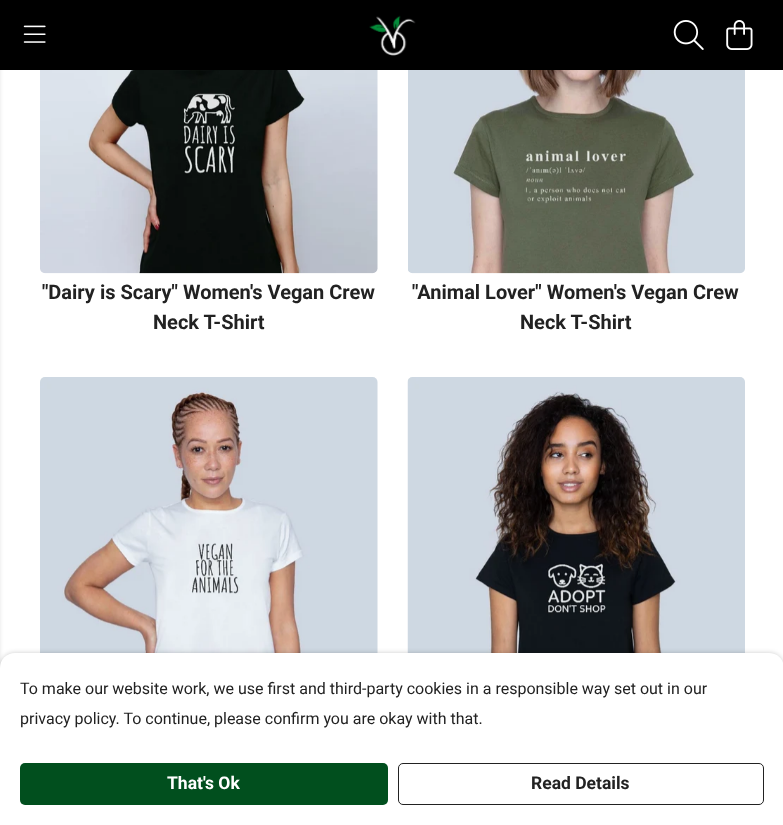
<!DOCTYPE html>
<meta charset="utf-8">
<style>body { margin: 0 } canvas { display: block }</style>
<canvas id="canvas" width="783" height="825"></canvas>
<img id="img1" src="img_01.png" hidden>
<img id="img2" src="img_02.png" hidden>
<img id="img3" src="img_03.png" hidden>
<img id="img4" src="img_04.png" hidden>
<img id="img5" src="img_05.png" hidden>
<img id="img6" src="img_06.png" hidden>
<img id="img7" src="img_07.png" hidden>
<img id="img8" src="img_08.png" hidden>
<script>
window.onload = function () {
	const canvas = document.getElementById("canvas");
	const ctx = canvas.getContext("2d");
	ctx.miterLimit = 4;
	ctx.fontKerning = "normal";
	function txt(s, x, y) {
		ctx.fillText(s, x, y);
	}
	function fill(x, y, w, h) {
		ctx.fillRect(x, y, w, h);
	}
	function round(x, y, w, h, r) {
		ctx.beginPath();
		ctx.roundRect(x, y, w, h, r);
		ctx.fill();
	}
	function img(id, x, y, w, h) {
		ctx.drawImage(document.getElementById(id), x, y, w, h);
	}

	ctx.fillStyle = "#FFFFFF";
	fill(0, 0, 783, 825);
	ctx.fillStyle = "#000000";
	fill(0, 0, 783, 70);
	img("img1", 23, 25, 23, 18);
	img("img2", 369, 15, 47, 41);
	img("img3", 673, 20, 31, 30);
	img("img4", 726, 20, 27, 30);
	ctx.fillStyle = "rgba(0, 0, 0, 0.1)";
	ctx.filter = "blur(2px)";
	ctx.beginPath();
	ctx.rect(-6, 1, 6, 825);
	ctx.fill();
	ctx.filter = "none";
	img("img5", 40, 70, 338, 204);
	img("img6", 408, 70, 337, 204);
	img("img7", 40, 377, 338, 276);
	img("img8", 407, 377, 338, 276);
	ctx.fillStyle = "rgba(0, 0, 0, 0.2)";
	ctx.filter = "blur(2.5px)";
	ctx.beginPath();
	ctx.roundRect(0, 653, 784, 172, 15);
	ctx.fill();
	ctx.filter = "none";
	ctx.fillStyle = "#FFFFFF";
	ctx.beginPath();
	ctx.moveTo(15, 653);
	ctx.lineTo(769, 653);
	ctx.bezierCurveTo(777.5, 653, 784, 659.5, 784, 668);
	ctx.lineTo(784, 825);
	ctx.lineTo(0, 825);
	ctx.lineTo(0, 668);
	ctx.bezierCurveTo(0, 659.5, 6.5, 653, 15, 653);
	ctx.closePath();
	ctx.fill();
	ctx.fillStyle = "#014F1E";
	round(20, 763, 368, 42, 5);
	ctx.beginPath();
	ctx.roundRect(398.5, 763.5, 365, 41, 4.5);
	ctx.strokeStyle = "#222222";
	ctx.stroke();
	ctx.font = "bold 20px Roboto";
	ctx.fillStyle = "#222222";
	txt("\"Dairy is Scary\" Women's Vegan Crew", 42, 299);
	txt("Neck T-Shirt", 153, 329);
	txt("\"Animal Lover\" Women's Vegan Crew", 412, 299);
	txt("Neck T-Shirt", 520, 329);
	ctx.font = "16px Roboto";
	txt("To make our website work, we use first and third-party cookies in a responsible way set out in our", 20, 694);
	txt("privacy policy. To continue, please confirm you are okay with that.", 20, 724);
	ctx.font = "bold 17.5px Roboto";
	ctx.fillStyle = "#FFFFFF";
	txt("That's Ok", 167, 789);
	ctx.fillStyle = "#222222";
	txt("Read Details", 531, 789);
};
</script>
